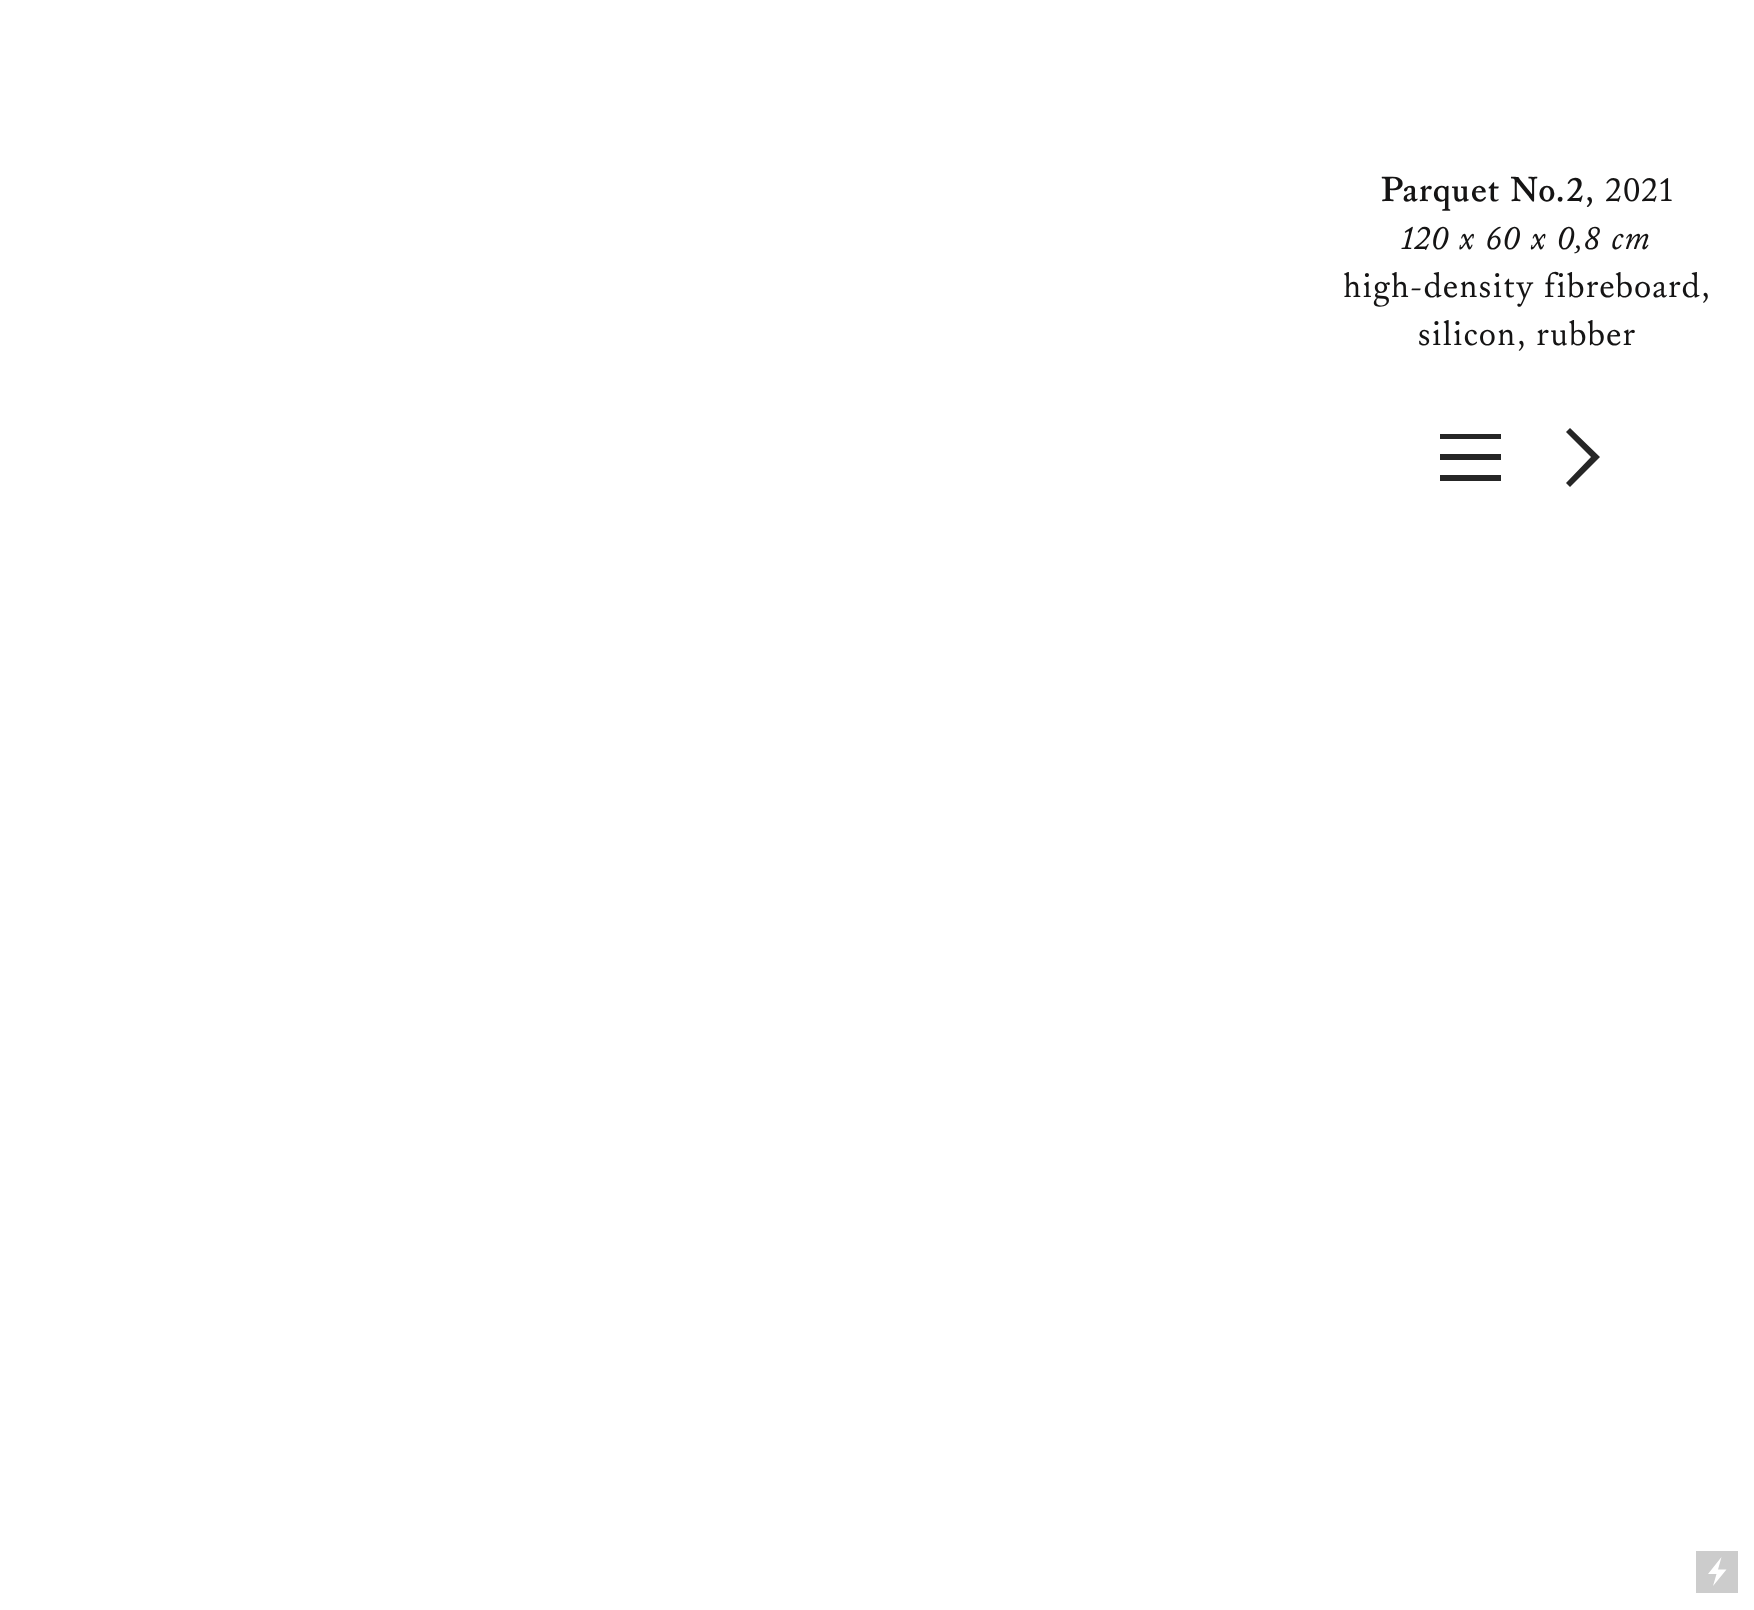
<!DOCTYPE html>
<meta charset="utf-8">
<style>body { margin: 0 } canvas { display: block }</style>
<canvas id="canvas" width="1754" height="1610"></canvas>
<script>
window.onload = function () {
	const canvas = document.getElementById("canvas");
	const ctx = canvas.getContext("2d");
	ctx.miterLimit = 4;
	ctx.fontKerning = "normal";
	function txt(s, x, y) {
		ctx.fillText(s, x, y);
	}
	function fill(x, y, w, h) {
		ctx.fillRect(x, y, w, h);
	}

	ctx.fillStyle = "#FFFFFF";
	fill(0, 0, 1754, 1610);
	ctx.fillStyle = "#262626";
	ctx.beginPath();
	ctx.moveTo(1501, 439);
	ctx.lineTo(1501, 434);
	ctx.lineTo(1440, 434);
	ctx.lineTo(1440, 439);
	ctx.closePath();
	ctx.moveTo(1501, 460);
	ctx.lineTo(1501, 454);
	ctx.lineTo(1440, 454);
	ctx.lineTo(1440, 460);
	ctx.closePath();
	ctx.moveTo(1501, 481);
	ctx.lineTo(1501, 475);
	ctx.lineTo(1440, 475);
	ctx.lineTo(1440, 481);
	ctx.closePath();
	ctx.fill();
	ctx.beginPath();
	ctx.moveTo(1600, 457);
	ctx.lineTo(1570, 428);
	ctx.lineTo(1566, 432);
	ctx.lineTo(1591, 457);
	ctx.lineTo(1566, 483);
	ctx.lineTo(1570, 487);
	ctx.closePath();
	ctx.fill();
	ctx.fillStyle = "#CCCCCC";
	fill(1696, 1551, 42, 42);
	ctx.fillStyle = "#FFFFFF";
	ctx.beginPath();
	ctx.moveTo(1726.5, 1569.5);
	ctx.lineTo(1718, 1569.5);
	ctx.lineTo(1721.5, 1557);
	ctx.lineTo(1708, 1574);
	ctx.lineTo(1716.5, 1574);
	ctx.lineTo(1713, 1586);
	ctx.closePath();
	ctx.fill();
	ctx.letterSpacing = "0.9px";
	ctx.font = "bold 37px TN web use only";
	ctx.fillStyle = "#151414";
	txt("Parquet No.2,", 1381, 201);
	ctx.font = "37px TN web use only";
	txt("2021", 1605, 201);
	ctx.font = "italic 37px TN web use only";
	txt("120 x 60 x 0,8 cm", 1402, 249);
	ctx.font = "37px TN web use only";
	txt("high-density fibreboard,", 1343, 297);
	txt("silicon, rubber", 1418, 345);
};
</script>
